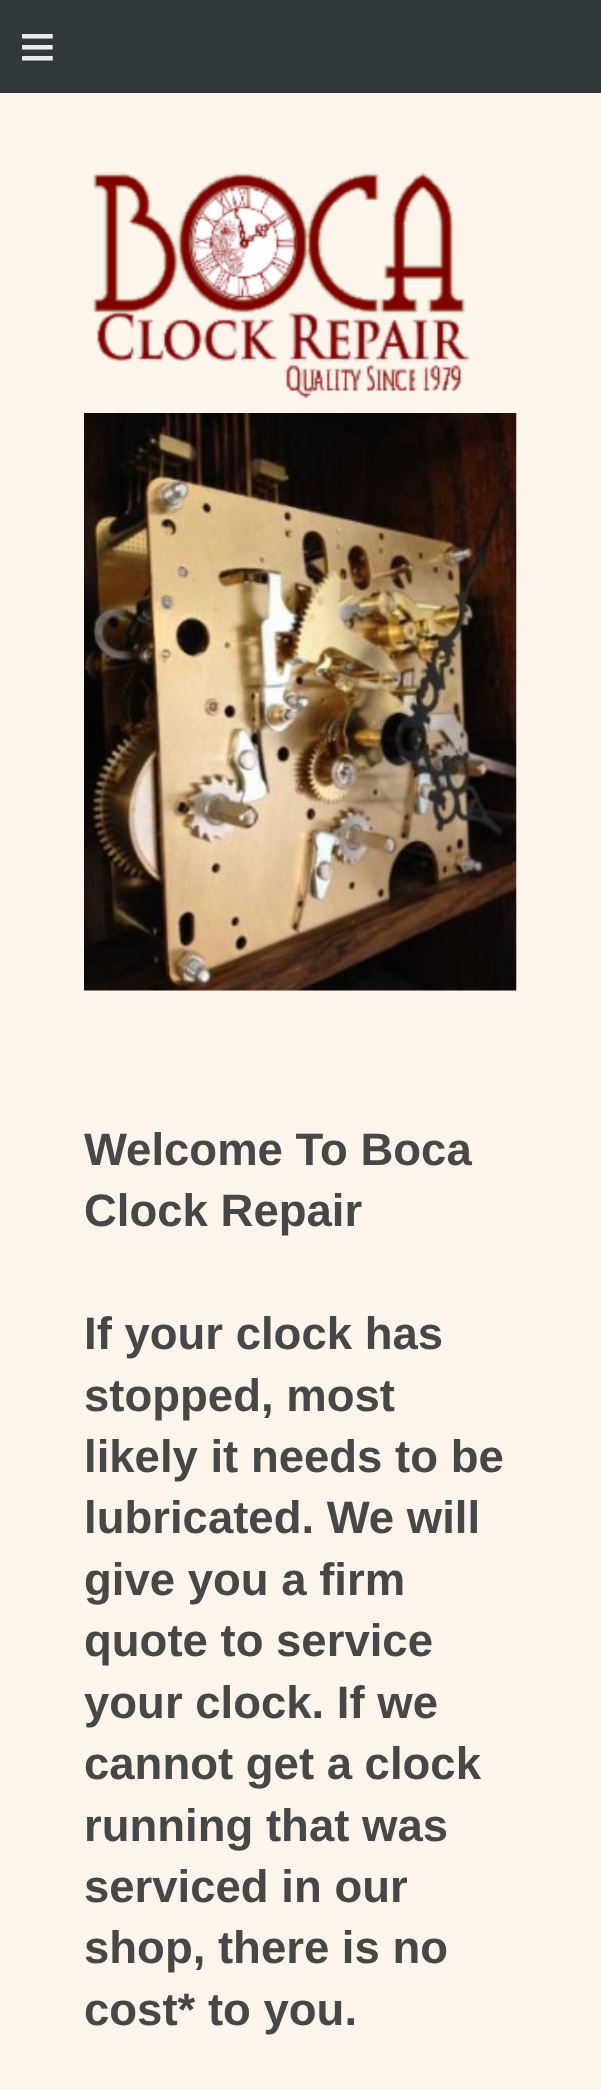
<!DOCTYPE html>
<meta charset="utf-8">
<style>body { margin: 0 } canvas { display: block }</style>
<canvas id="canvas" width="601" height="2090"></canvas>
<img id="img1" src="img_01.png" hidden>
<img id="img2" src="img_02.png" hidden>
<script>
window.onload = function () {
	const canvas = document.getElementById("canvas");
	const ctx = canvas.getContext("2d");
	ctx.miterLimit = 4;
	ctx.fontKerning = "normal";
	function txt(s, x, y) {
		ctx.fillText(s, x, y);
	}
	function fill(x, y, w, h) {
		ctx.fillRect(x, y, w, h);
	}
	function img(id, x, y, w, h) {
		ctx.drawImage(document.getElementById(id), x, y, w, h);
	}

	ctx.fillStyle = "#30383C";
	fill(0, 0, 601, 2090);
	ctx.fillStyle = "#FDF5EB";
	fill(0, 93, 601, 1997);
	img("img1", 92, 172, 378, 227);
	img("img2", 84, 413, 433, 578);
	ctx.letterSpacing = "18px";
	ctx.font = "63px Liberation Sans";
	ctx.fillStyle = "#EAEBEC";
	txt("≡", 19, 68);
	ctx.letterSpacing = "0px";
	ctx.font = "bold 45.5px Liberation Sans";
	ctx.fillStyle = "#474747";
	txt("Welcome To Boca", 84, 1165);
	txt("Clock Repair", 84, 1226);
	txt("If your clock has", 84, 1349);
	txt("stopped, most", 84, 1411);
	txt("likely it needs to be", 84, 1472);
	txt("lubricated. We will", 84, 1533);
	txt("give you a firm", 84, 1595);
	txt("quote to service", 84, 1656);
	txt("your clock. If we", 84, 1718);
	txt("cannot get a clock", 84, 1779);
	txt("running that was", 84, 1841);
	txt("serviced in our", 84, 1902);
	txt("shop, there is no", 84, 1963);
	txt("cost* to you.", 84, 2025);
};
</script>
